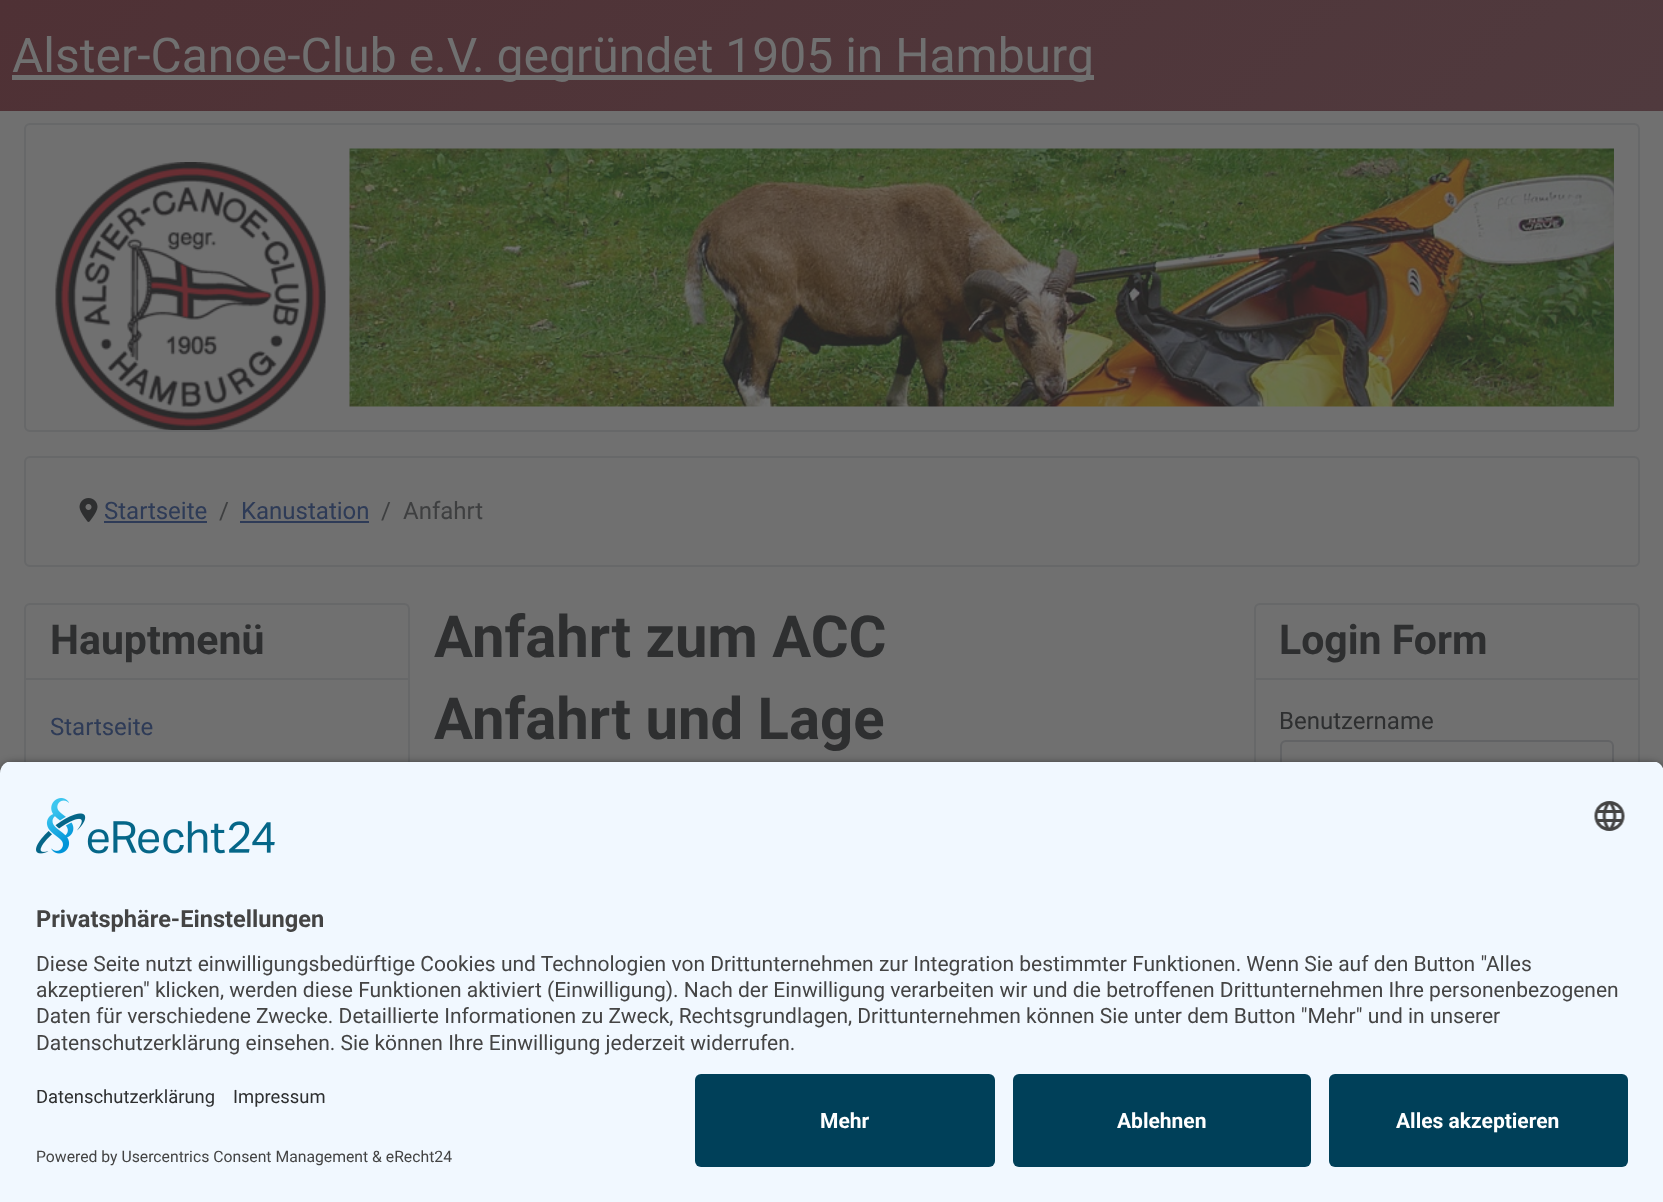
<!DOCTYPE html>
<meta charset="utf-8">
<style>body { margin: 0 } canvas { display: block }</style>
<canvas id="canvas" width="1663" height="1202"></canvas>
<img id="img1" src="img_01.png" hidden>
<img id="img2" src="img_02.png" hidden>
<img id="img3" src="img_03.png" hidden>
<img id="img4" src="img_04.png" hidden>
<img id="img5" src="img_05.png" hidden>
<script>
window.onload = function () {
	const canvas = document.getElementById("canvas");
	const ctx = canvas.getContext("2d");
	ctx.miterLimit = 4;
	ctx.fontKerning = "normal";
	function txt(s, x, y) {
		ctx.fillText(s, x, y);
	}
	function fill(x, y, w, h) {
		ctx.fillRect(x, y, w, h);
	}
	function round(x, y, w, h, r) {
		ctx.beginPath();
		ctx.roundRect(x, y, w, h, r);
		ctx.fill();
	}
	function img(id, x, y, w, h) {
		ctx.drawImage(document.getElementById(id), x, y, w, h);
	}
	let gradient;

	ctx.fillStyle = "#707070";
	fill(0, 0, 1663, 1202);
	gradient = ctx.createLinearGradient(388, -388, 1275, 499);
	gradient.addColorStop(0, "#4F3135");
	gradient.addColorStop(1, "#503A3E");
	ctx.fillStyle = gradient;
	fill(0, 0, 1663, 111);
	ctx.fillStyle = "#707070";
	fill(12, 75, 1082, 5);
	img("img1", 55, 162, 271, 268);
	ctx.beginPath();
	ctx.roundRect(25, 124, 1614, 307, 5);
	ctx.strokeStyle = "#676869";
	ctx.lineWidth = 2;
	ctx.stroke();
	img("img2", 349, 148, 1265, 259);
	ctx.beginPath();
	ctx.roundRect(25, 457, 1614, 109, 5);
	ctx.stroke();
	img("img3", 79, 498, 19, 24);
	ctx.fillStyle = "#2E3B57";
	fill(104, 521, 103, 2);
	fill(240, 521, 129, 2);
	ctx.beginPath();
	ctx.roundRect(25, 604, 384, 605, 5);
	ctx.stroke();
	ctx.fillStyle = "#676869";
	fill(26, 678, 382, 2);
	ctx.beginPath();
	ctx.roundRect(1255, 604, 384, 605, 5);
	ctx.stroke();
	fill(1256, 678, 382, 2);
	ctx.beginPath();
	ctx.roundRect(1281, 741, 332, 65, 5);
	ctx.strokeStyle = "#626365";
	ctx.stroke();
	ctx.fillStyle = "rgba(0, 0, 0, 0.8)";
	ctx.filter = "blur(5px)";
	ctx.beginPath();
	ctx.roundRect(0, 765, 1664, 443, 12);
	ctx.fill();
	ctx.filter = "none";
	ctx.save();
	ctx.beginPath();
	ctx.moveTo(12, 761);
	ctx.lineTo(1652, 761);
	ctx.bezierCurveTo(1658.5, 761, 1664, 766.5, 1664, 773);
	ctx.lineTo(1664, 1062);
	ctx.lineTo(0, 1062);
	ctx.lineTo(0, 773);
	ctx.bezierCurveTo(0, 766.5, 5.5, 761, 12, 761);
	ctx.closePath();
	ctx.clip();
	ctx.fillStyle = "#F1F8FF";
	fill(0, 762, 1663, 300);
	ctx.restore();
	img("img4", 36, 798, 239, 56);
	img("img5", 1594, 801, 31, 30);
	ctx.fillStyle = "#F1F8FF";
	fill(0, 1062, 1663, 140);
	ctx.fillStyle = "#004059";
	round(695, 1074, 300, 93, 6);
	round(1013, 1074, 298, 93, 6);
	round(1329, 1074, 299, 93, 6);
	ctx.font = "48px Roboto";
	ctx.fillStyle = "#707070";
	txt("Alster-Canoe-Club e.V. gegründet 1905 in Hamburg", 12, 72);
	ctx.font = "24px Roboto";
	ctx.fillStyle = "#2E3B57";
	txt("Startseite", 104, 519);
	ctx.fillStyle = "#3E3F40";
	txt("/", 219, 519);
	ctx.fillStyle = "#2E3B57";
	txt("Kanustation", 241, 519);
	ctx.fillStyle = "#3E3F40";
	txt("/", 381, 519);
	txt("Anfahrt", 403, 519);
	ctx.font = "bold 41px Roboto";
	ctx.fillStyle = "#2E2F30";
	txt("Hauptmenü", 50, 654);
	ctx.font = "24px Roboto";
	ctx.fillStyle = "#2E3B57";
	txt("Startseite", 50, 735);
	ctx.font = "bold 58px Roboto";
	ctx.fillStyle = "#2E2F30";
	txt("Anfahrt zum ACC", 434, 657);
	txt("Anfahrt und Lage", 434, 739);
	ctx.font = "bold 41px Roboto";
	txt("Login Form", 1279, 654);
	ctx.font = "24px Roboto";
	txt("Benutzername", 1279, 729);
	ctx.font = "bold 23.6px Roboto";
	ctx.fillStyle = "#444444";
	txt("Privatsphäre-Einstellungen", 36, 927);
	ctx.font = "21px Roboto";
	txt("Diese Seite nutzt einwilligungsbedürftige Cookies und Technologien von Drittunternehmen zur Integration bestimmter Funktionen. Wenn Sie auf den Button \"Alles", 36, 971);
	txt("akzeptieren\" klicken, werden diese Funktionen aktiviert (Einwilligung). Nach der Einwilligung verarbeiten wir und die betroffenen Drittunternehmen Ihre personenbezogenen", 36, 997);
	txt("Daten für verschiedene Zwecke. Detaillierte Informationen zu Zweck, Rechtsgrundlagen, Drittunternehmen können Sie unter dem Button \"Mehr\" und in unserer", 36, 1023);
	txt("Datenschutzerklärung einsehen. Sie können Ihre Einwilligung jederzeit widerrufen.", 36, 1050);
	ctx.font = "18.4px Roboto";
	ctx.fillStyle = "#2E2F30";
	txt("Datenschutzerklärung", 36, 1103);
	txt("Impressum", 233, 1103);
	ctx.font = "15.75px Roboto";
	ctx.fillStyle = "#444444";
	txt("Powered by Usercentrics Consent Management & eRecht24", 36, 1162);
	ctx.font = "bold 21px Roboto";
	ctx.fillStyle = "#FFFFFF";
	txt("Mehr", 820, 1128);
	txt("Ablehnen", 1117, 1128);
	txt("Alles akzeptieren", 1396, 1128);
};
</script>
